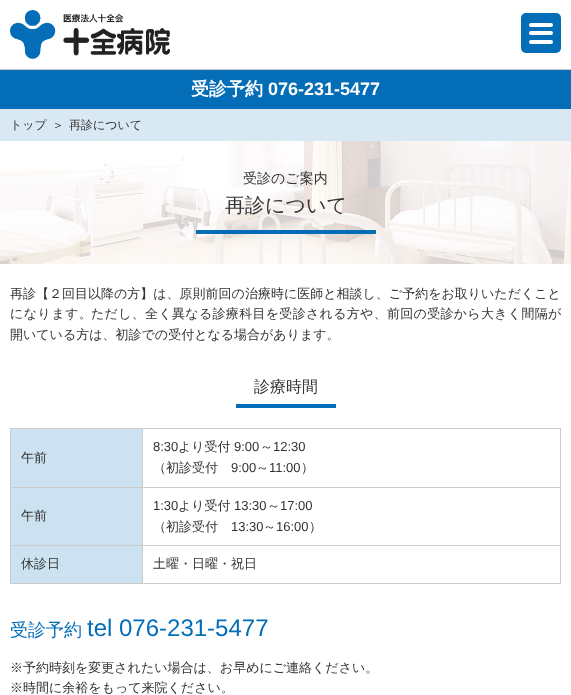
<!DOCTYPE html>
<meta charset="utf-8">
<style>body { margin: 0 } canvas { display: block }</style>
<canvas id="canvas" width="571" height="695"></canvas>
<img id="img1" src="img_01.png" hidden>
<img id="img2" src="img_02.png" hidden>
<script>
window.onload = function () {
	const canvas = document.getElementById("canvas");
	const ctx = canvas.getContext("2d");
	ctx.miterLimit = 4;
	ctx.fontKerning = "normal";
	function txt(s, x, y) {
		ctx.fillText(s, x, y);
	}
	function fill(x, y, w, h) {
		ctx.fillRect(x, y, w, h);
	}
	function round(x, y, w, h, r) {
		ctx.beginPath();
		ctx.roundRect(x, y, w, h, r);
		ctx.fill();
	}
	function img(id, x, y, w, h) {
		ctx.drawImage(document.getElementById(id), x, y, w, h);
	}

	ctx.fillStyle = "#FFFFFF";
	fill(0, 0, 571, 695);
	ctx.fillStyle = "#CCCCCC";
	fill(0, 69, 571, 1);
	img("img1", 10, 10, 160, 49);
	ctx.fillStyle = "#036DB7";
	round(521, 13, 40, 40, 5);
	ctx.fillStyle = "#FFFFFF";
	round(529, 23, 24, 4, 2);
	round(529, 31, 24, 4, 2);
	round(529, 40, 24, 4, 2);
	ctx.fillStyle = "#036DB7";
	fill(0, 70, 571, 39);
	ctx.fillStyle = "#D9E9F4";
	fill(0, 109, 571, 32);
	img("img2", 0, 141, 571, 123);
	ctx.fillStyle = "#036DB7";
	fill(196, 230, 180, 4);
	fill(236, 404, 100, 4);
	ctx.fillStyle = "#CDE2F1";
	fill(11, 429, 131, 58);
	ctx.fillStyle = "#CCCCCC";
	fill(142, 428, 419, 1);
	fill(142, 487, 419, 1);
	fill(142, 545, 419, 1);
	fill(560, 545, 1, 39);
	fill(142, 583, 419, 1);
	fill(142, 545, 1, 39);
	fill(10, 545, 133, 1);
	fill(142, 487, 1, 59);
	fill(10, 487, 133, 1);
	fill(142, 428, 1, 60);
	fill(10, 428, 133, 1);
	fill(10, 583, 133, 1);
	fill(10, 545, 1, 39);
	fill(10, 487, 1, 59);
	fill(10, 428, 1, 60);
	fill(560, 487, 1, 59);
	fill(560, 428, 1, 60);
	ctx.fillStyle = "#CDE2F1";
	fill(11, 488, 131, 57);
	fill(11, 546, 131, 37);
	ctx.font = "bold 18px WenQuanYi Zen Hei";
	ctx.fillStyle = "#FFFFFF";
	txt("受診予約", 191, 95);
	ctx.font = "bold 18px Liberation Sans";
	txt("076-231-5477", 268, 95);
	ctx.font = "500 12px WenQuanYi Zen Hei";
	ctx.fillStyle = "#333333";
	txt("トップ", 10, 129);
	txt("＞", 52, 129);
	txt("再診について", 69, 129);
	ctx.font = "500 14px WenQuanYi Zen Hei";
	txt("受診のご案内", 243, 183);
	ctx.font = "500 20px WenQuanYi Zen Hei";
	txt("再診について", 225, 212);
	ctx.font = "500 13px WenQuanYi Zen Hei";
	txt("再診【２回目以降の方】は、原則前回の治療時に医師と相談し、ご予約をお取りいただくこと", 10, 298);
	ctx.letterSpacing = "0.5px";
	txt("になります。", 10, 318);
	ctx.letterSpacing = "0.3px";
	txt("ただし、全く異なる診療科目を受診される方や、前回の受診から大きく間隔が", 91, 318);
	ctx.letterSpacing = "0px";
	txt("開いている方は、初診での受付となる場合があります。", 10, 339);
	ctx.font = "500 16px WenQuanYi Zen Hei";
	txt("診療時間", 254, 392);
	ctx.font = "500 13px WenQuanYi Zen Hei";
	txt("午前", 21, 462);
	ctx.font = "13px Liberation Sans";
	txt("8:30", 153, 451);
	ctx.font = "500 13px WenQuanYi Zen Hei";
	txt("より受付", 178, 451);
	ctx.font = "13px Liberation Sans";
	txt("9:00", 234, 451);
	ctx.font = "500 13px WenQuanYi Zen Hei";
	txt("～", 260, 451);
	ctx.font = "13px Liberation Sans";
	txt("12:30", 273, 451);
	ctx.font = "500 13px WenQuanYi Zen Hei";
	txt("（初診受付", 153, 472);
	ctx.font = "13px Liberation Sans";
	txt("9:00", 231, 472);
	ctx.font = "500 13px WenQuanYi Zen Hei";
	txt("～", 256, 472);
	ctx.font = "13px Liberation Sans";
	txt("11:00", 269, 472);
	ctx.font = "500 13px WenQuanYi Zen Hei";
	txt("）", 301, 472);
	txt("午前", 21, 520);
	ctx.font = "13px Liberation Sans";
	txt("1:30", 153, 510);
	ctx.font = "500 13px WenQuanYi Zen Hei";
	txt("より受付", 178, 510);
	ctx.font = "13px Liberation Sans";
	txt("13:30", 234, 510);
	ctx.font = "500 13px WenQuanYi Zen Hei";
	txt("～", 267, 510);
	ctx.font = "13px Liberation Sans";
	txt("17:00", 280, 510);
	ctx.font = "500 13px WenQuanYi Zen Hei";
	txt("（初診受付", 153, 531);
	ctx.font = "13px Liberation Sans";
	txt("13:30", 231, 531);
	ctx.font = "500 13px WenQuanYi Zen Hei";
	txt("～", 263, 531);
	ctx.font = "13px Liberation Sans";
	txt("16:00", 276, 531);
	ctx.font = "500 13px WenQuanYi Zen Hei";
	txt("）", 309, 531);
	txt("休診日", 21, 568);
	txt("土曜・日曜・祝日", 153, 568);
	ctx.font = "500 18px WenQuanYi Zen Hei";
	ctx.fillStyle = "#036DB7";
	txt("受診予約", 10, 636);
	ctx.font = "24px Liberation Sans";
	txt("tel 076-231-5477", 87, 636);
	ctx.font = "500 13px WenQuanYi Zen Hei";
	ctx.fillStyle = "#333333";
	txt("※予約時刻を変更されたい場合は、お早めにご連絡ください。", 10, 672);
	txt("※時間に余裕をもって来院ください。", 10, 692);
};
</script>
